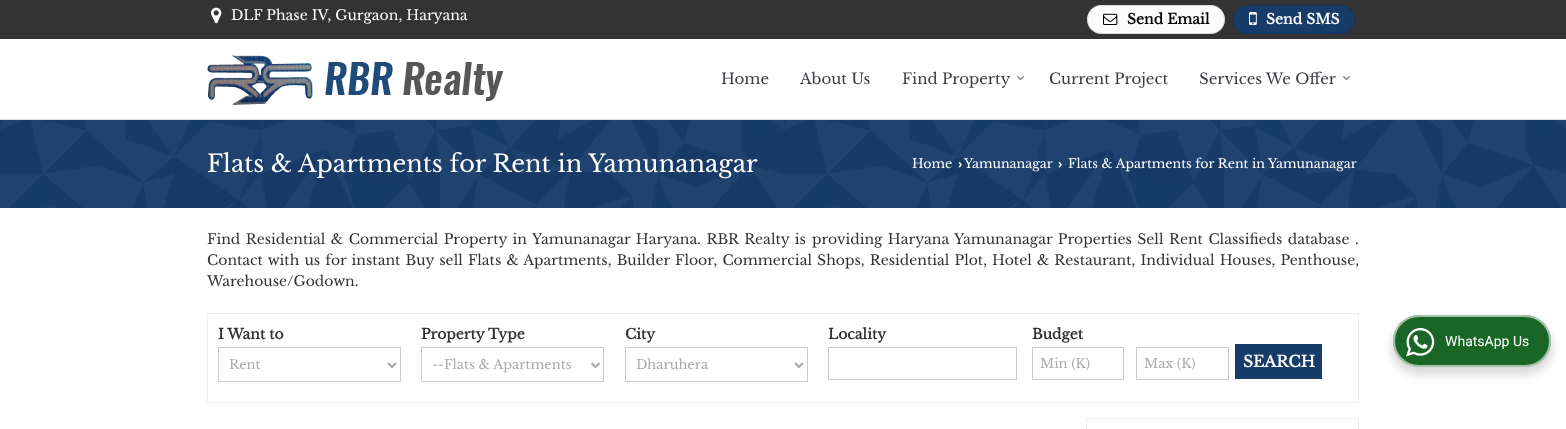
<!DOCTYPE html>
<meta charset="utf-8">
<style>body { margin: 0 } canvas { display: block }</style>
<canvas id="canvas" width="1566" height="429"></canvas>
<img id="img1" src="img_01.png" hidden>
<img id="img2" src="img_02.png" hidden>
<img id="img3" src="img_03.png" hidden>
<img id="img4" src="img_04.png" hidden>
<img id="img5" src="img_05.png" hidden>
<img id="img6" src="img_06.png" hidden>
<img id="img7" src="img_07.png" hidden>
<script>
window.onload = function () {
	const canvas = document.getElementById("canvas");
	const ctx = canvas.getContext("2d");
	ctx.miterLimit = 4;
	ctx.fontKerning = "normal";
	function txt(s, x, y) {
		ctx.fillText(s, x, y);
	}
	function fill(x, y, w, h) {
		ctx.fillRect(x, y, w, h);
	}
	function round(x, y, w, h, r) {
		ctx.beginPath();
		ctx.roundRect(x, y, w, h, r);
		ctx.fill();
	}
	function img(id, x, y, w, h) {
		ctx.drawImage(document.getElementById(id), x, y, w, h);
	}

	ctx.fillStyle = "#FFFFFF";
	fill(0, 0, 1566, 429);
	ctx.fillStyle = "#333333";
	fill(0, 0, 1566, 39);
	img("img1", 211, 7, 11, 17);
	ctx.fillStyle = "#FCFCFC";
	round(1087, 5, 138, 29, 14.5);
	ctx.beginPath();
	ctx.roundRect(1087.5, 5.5, 137, 28, 14);
	ctx.strokeStyle = "rgba(0, 0, 0, 0.13)";
	ctx.stroke();
	img("img2", 1103, 13, 15, 12);
	ctx.fillStyle = "#183C6A";
	round(1233, 5, 122, 29, 14.5);
	ctx.beginPath();
	ctx.roundRect(1233.5, 5.5, 121, 28, 14);
	ctx.stroke();
	img("img3", 1249, 12, 8, 13);
	ctx.fillStyle = "#DEDEDE";
	fill(0, 119, 1566, 1);
	img("img4", 207, 55, 297, 50);
	img("img5", 1017, 76, 7, 5);
	img("img5", 1343, 76, 7, 5);
	ctx.fillStyle = "#183C6A";
	fill(0, 120, 1566, 88);
	img("img6", 0, 120, 1566, 88);
	ctx.strokeStyle = "#EDEDED";
	ctx.strokeRect(207.5, 313.5, 1151, 89);
	ctx.strokeStyle = "#CCCCCC";
	ctx.strokeRect(218.5, 347.5, 182, 34);
	ctx.beginPath();
	ctx.moveTo(388, 363);
	ctx.lineTo(392, 367);
	ctx.lineTo(396, 363);
	ctx.strokeStyle = "#AAAAAA";
	ctx.lineWidth = 2;
	ctx.stroke();
	ctx.strokeStyle = "#CCCCCC";
	ctx.lineWidth = 1;
	ctx.strokeRect(421.5, 347.5, 182, 34);
	ctx.beginPath();
	ctx.moveTo(591.5, 363);
	ctx.lineTo(595.5, 367);
	ctx.lineTo(599.5, 363);
	ctx.strokeStyle = "#AAAAAA";
	ctx.lineWidth = 2;
	ctx.stroke();
	ctx.strokeStyle = "#CCCCCC";
	ctx.lineWidth = 1;
	ctx.strokeRect(625.5, 347.5, 182, 34);
	ctx.beginPath();
	ctx.moveTo(795, 363);
	ctx.lineTo(799, 367);
	ctx.lineTo(803, 363);
	ctx.strokeStyle = "#AAAAAA";
	ctx.lineWidth = 2;
	ctx.stroke();
	ctx.strokeStyle = "#CCCCCC";
	ctx.lineWidth = 1;
	ctx.strokeRect(828.5, 347.5, 188, 32);
	ctx.strokeRect(1032.5, 347.5, 91, 32);
	ctx.strokeRect(1136.5, 347.5, 92, 32);
	fill(1235, 344, 87, 35);
	ctx.strokeStyle = "#EDEDED";
	ctx.strokeRect(1086.5, 418.5, 272, 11);
	ctx.fillStyle = "rgba(0, 0, 0, 0.14)";
	ctx.filter = "blur(4px)";
	ctx.beginPath();
	ctx.roundRect(1391, 319, 162, 56, 28);
	ctx.fill();
	ctx.filter = "none";
	ctx.fillStyle = "#196626";
	round(1393, 315, 158, 52, 26);
	ctx.beginPath();
	ctx.roundRect(1394, 316, 156, 50, 25);
	ctx.strokeStyle = "rgba(255, 255, 255, 0.6)";
	ctx.lineWidth = 2;
	ctx.stroke();
	img("img7", 1406, 328, 29, 29);
	ctx.font = "14px Libre Baskerville";
	ctx.fillStyle = "#FFFFFF";
	txt("DLF Phase IV, Gurgaon, Haryana", 231, 20);
	ctx.font = "bold 14px Libre Baskerville";
	ctx.fillStyle = "#000000";
	txt("Send Email", 1127, 24);
	ctx.fillStyle = "#FFFFFF";
	txt("Send SMS", 1266, 24);
	ctx.font = "15px Libre Baskerville";
	ctx.fillStyle = "#3C3C44";
	txt("Home", 721, 84);
	txt("About Us", 800, 84);
	txt("Find Property", 902, 84);
	txt("Current Project", 1049, 84);
	txt("Services We Offer", 1199, 84);
	ctx.font = "24px Libre Baskerville";
	ctx.fillStyle = "#FFFFFF";
	txt("Flats & Apartments for Rent in Yamunanagar", 207, 172);
	ctx.font = "12.6px Libre Baskerville";
	txt("Home", 912, 168);
	ctx.font = "bold 12.6px Liberation Sans";
	txt("›", 958, 168);
	ctx.font = "12.6px Libre Baskerville";
	txt("Yamunanagar", 964, 168);
	ctx.font = "bold 12.6px Liberation Sans";
	txt("›", 1058, 168);
	ctx.font = "12.6px Libre Baskerville";
	txt("Flats & Apartments for Rent in Yamunanagar", 1068, 168);
	ctx.wordSpacing = "1.5px";
	ctx.font = "14px Libre Baskerville";
	ctx.fillStyle = "#333333";
	txt("Find Residential & Commercial Property in Yamunanagar Haryana. RBR Realty is", 207, 244);
	txt("providing Haryana Yamunanagar Properties Sell Rent Classifieds database .", 812, 244);
	ctx.wordSpacing = "1.15px";
	txt("Contact with us for instant Buy sell Flats & Apartments, Builder Floor, Commercial Shops, Residential Plot, Hotel & Restaurant, Individual Houses, Penthouse,", 207, 265);
	ctx.wordSpacing = "0px";
	txt("Warehouse/Godown.", 207, 286);
	ctx.font = "bold 14px Libre Baskerville";
	txt("I Want to", 218, 339);
	ctx.font = "13px Libre Baskerville";
	ctx.fillStyle = "#AAAAAA";
	txt("Rent", 229, 369);
	ctx.font = "bold 14px Libre Baskerville";
	ctx.fillStyle = "#333333";
	txt("Property Type", 421, 339);
	ctx.font = "13px Libre Baskerville";
	ctx.fillStyle = "#AAAAAA";
	txt("--Flats & Apartments", 432, 369);
	ctx.font = "bold 14px Libre Baskerville";
	ctx.fillStyle = "#333333";
	txt("City", 625, 339);
	ctx.font = "13px Libre Baskerville";
	ctx.fillStyle = "#AAAAAA";
	txt("Dharuhera", 636, 369);
	ctx.font = "bold 14px Libre Baskerville";
	ctx.fillStyle = "#333333";
	txt("Locality", 828, 339);
	txt("Budget", 1032, 339);
	ctx.font = "13px Libre Baskerville";
	ctx.fillStyle = "#AAAAAA";
	txt("Min (K)", 1040, 368);
	txt("Max (K)", 1144, 368);
	ctx.font = "bold 15.5px Libre Baskerville";
	ctx.fillStyle = "#FFFFFF";
	txt("SEARCH", 1243, 367);
	ctx.font = "14px Roboto";
	txt("WhatsApp Us", 1445, 346);
};
</script>
